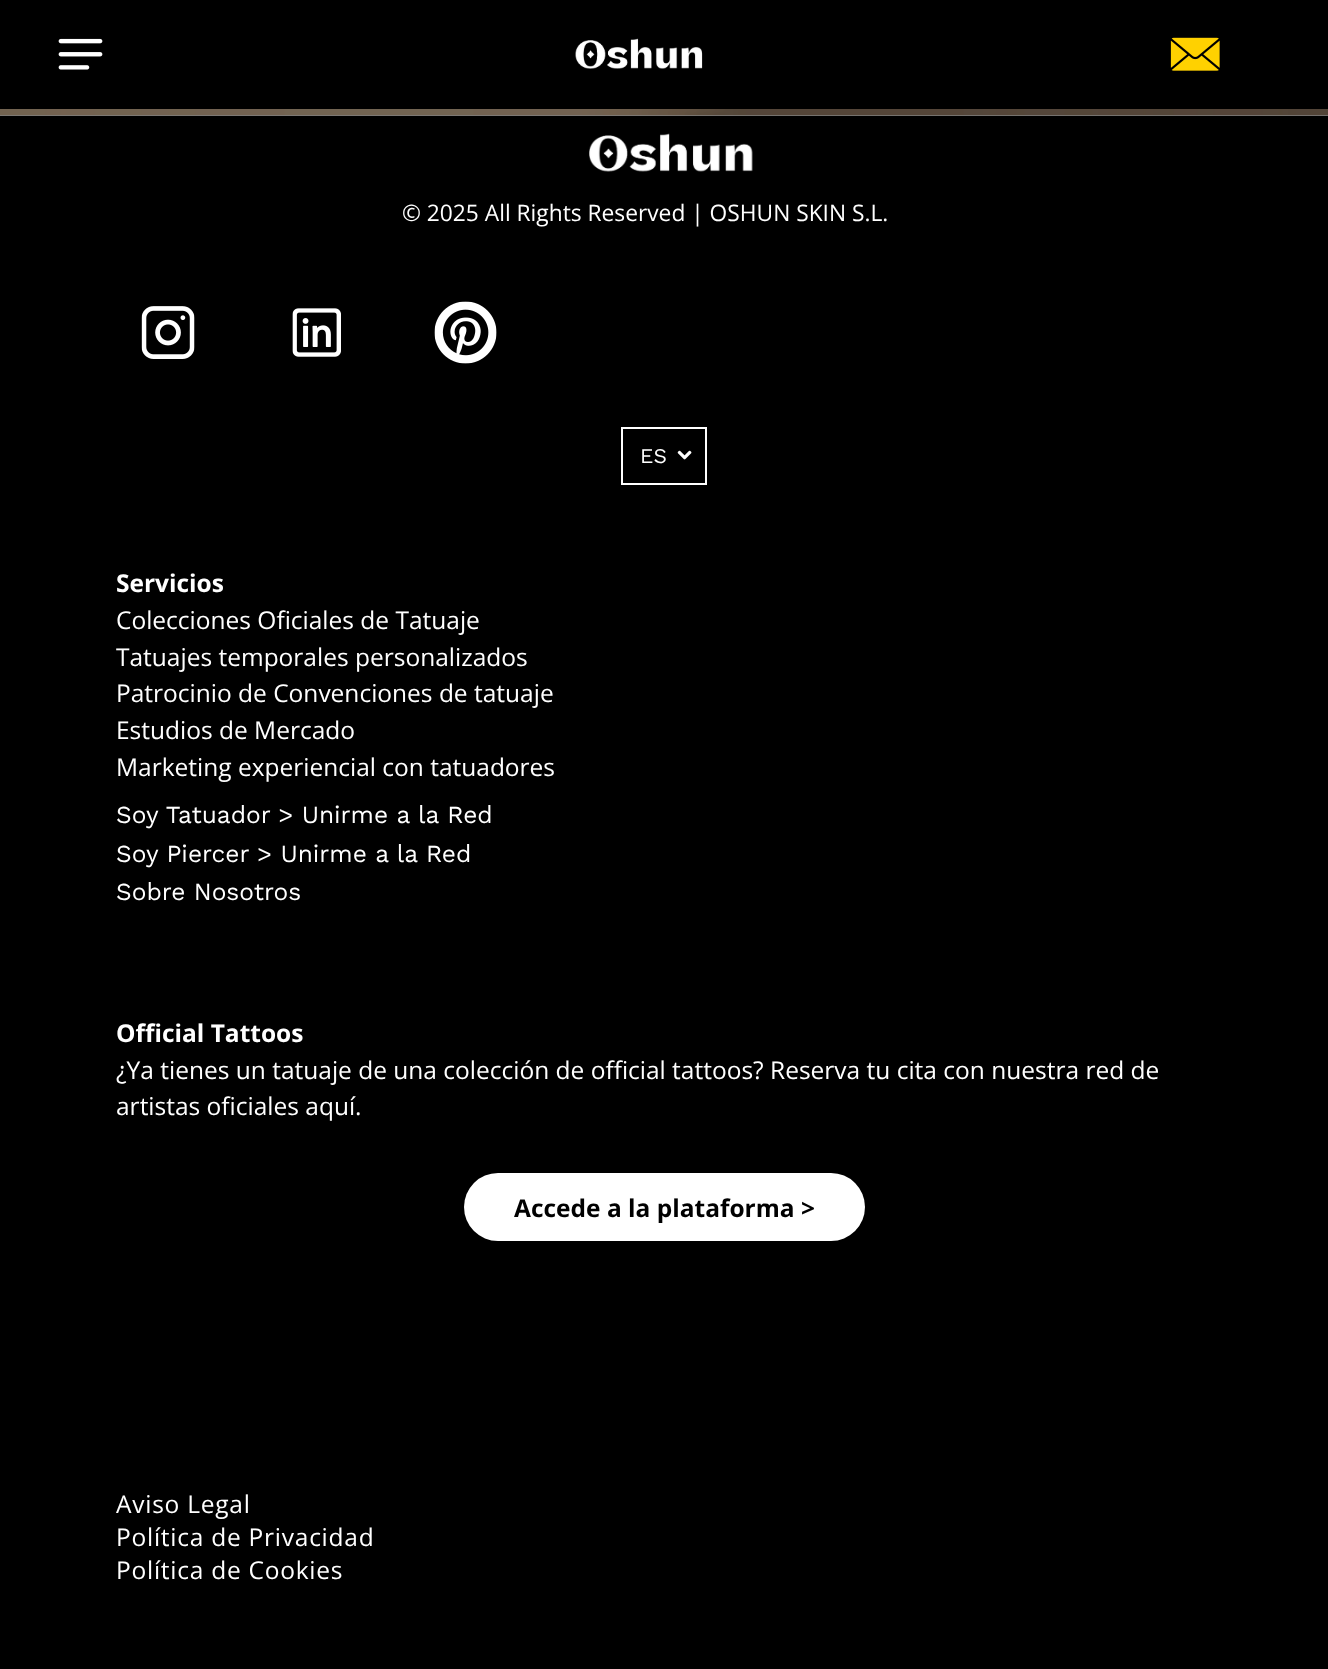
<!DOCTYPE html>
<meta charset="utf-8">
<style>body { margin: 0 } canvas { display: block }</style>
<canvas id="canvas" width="1328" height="1669"></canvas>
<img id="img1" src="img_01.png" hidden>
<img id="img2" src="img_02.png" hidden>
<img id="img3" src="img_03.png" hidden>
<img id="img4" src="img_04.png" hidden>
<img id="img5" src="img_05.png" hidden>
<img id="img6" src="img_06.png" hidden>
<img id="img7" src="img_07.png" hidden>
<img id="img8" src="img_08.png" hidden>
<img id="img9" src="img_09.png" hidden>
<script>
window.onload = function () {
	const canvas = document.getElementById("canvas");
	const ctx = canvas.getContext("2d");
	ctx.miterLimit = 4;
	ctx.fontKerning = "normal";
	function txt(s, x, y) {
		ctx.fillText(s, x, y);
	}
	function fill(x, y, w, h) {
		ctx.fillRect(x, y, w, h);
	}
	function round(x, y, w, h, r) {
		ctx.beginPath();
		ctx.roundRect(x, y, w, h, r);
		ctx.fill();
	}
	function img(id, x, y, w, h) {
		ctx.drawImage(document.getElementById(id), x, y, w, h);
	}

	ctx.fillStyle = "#808080";
	fill(0, 0, 1328, 1669);
	ctx.fillStyle = "#000000";
	fill(0, 0, 1328, 109);
	img("img1", 58, 38, 45, 32);
	img("img2", 575, 38, 128, 31);
	img("img3", 1170, 37, 50, 34);
	img("img4", 0, 109, 1328, 7);
	fill(0, 116, 1328, 1553);
	img("img5", 589, 133, 164, 39);
	img("img6", 141, 306, 54, 53);
	img("img7", 292, 308, 49, 49);
	img("img8", 434, 301, 63, 63);
	ctx.strokeStyle = "#FFFFFF";
	ctx.lineWidth = 2;
	ctx.strokeRect(622, 428, 84, 56);
	img("img9", 677, 450, 15, 10);
	ctx.fillStyle = "#FFFFFF";
	round(464, 1173, 401, 68, 34);
	ctx.font = "22.75px Open Sans";
	txt("© 2025 All Rights Reserved | OSHUN SKIN S.L.", 402, 221);
	ctx.font = "21px Work Sans";
	txt("ES", 640, 463);
	ctx.font = "bold 24.5px Open Sans";
	txt("Servicios", 116, 592);
	ctx.font = "24.5px Open Sans";
	txt("Colecciones Oficiales de Tatuaje", 116, 629);
	txt("Tatuajes temporales personalizados", 116, 666);
	txt("Patrocinio de Convenciones de tatuaje", 116, 702);
	txt("Estudios de Mercado", 116, 739);
	txt("Marketing experiencial con tatuadores", 116, 776);
	ctx.font = "24.5px Work Sans";
	txt("Soy Tatuador > Unirme a la Red", 116, 823);
	txt("Soy Piercer > Unirme a la Red", 116, 862);
	txt("Sobre Nosotros", 116, 900);
	ctx.font = "bold 24.5px Open Sans";
	txt("Official Tattoos", 116, 1042);
	ctx.font = "24.5px Open Sans";
	txt("¿Ya tienes un tatuaje de una colección de official tattoos? Reserva tu cita con nuestra red de", 116, 1079);
	txt("artistas oficiales aquí.", 116, 1115);
	ctx.font = "bold 24.5px Open Sans";
	ctx.fillStyle = "#000000";
	txt("Accede a la plataforma >", 514, 1217);
	ctx.letterSpacing = "0.75px";
	ctx.font = "24.5px Open Sans";
	ctx.fillStyle = "#FFFFFF";
	txt("Aviso Legal", 116, 1513);
	txt("Política de Privacidad", 116, 1546);
	txt("Política de Cookies", 116, 1579);
};
</script>
